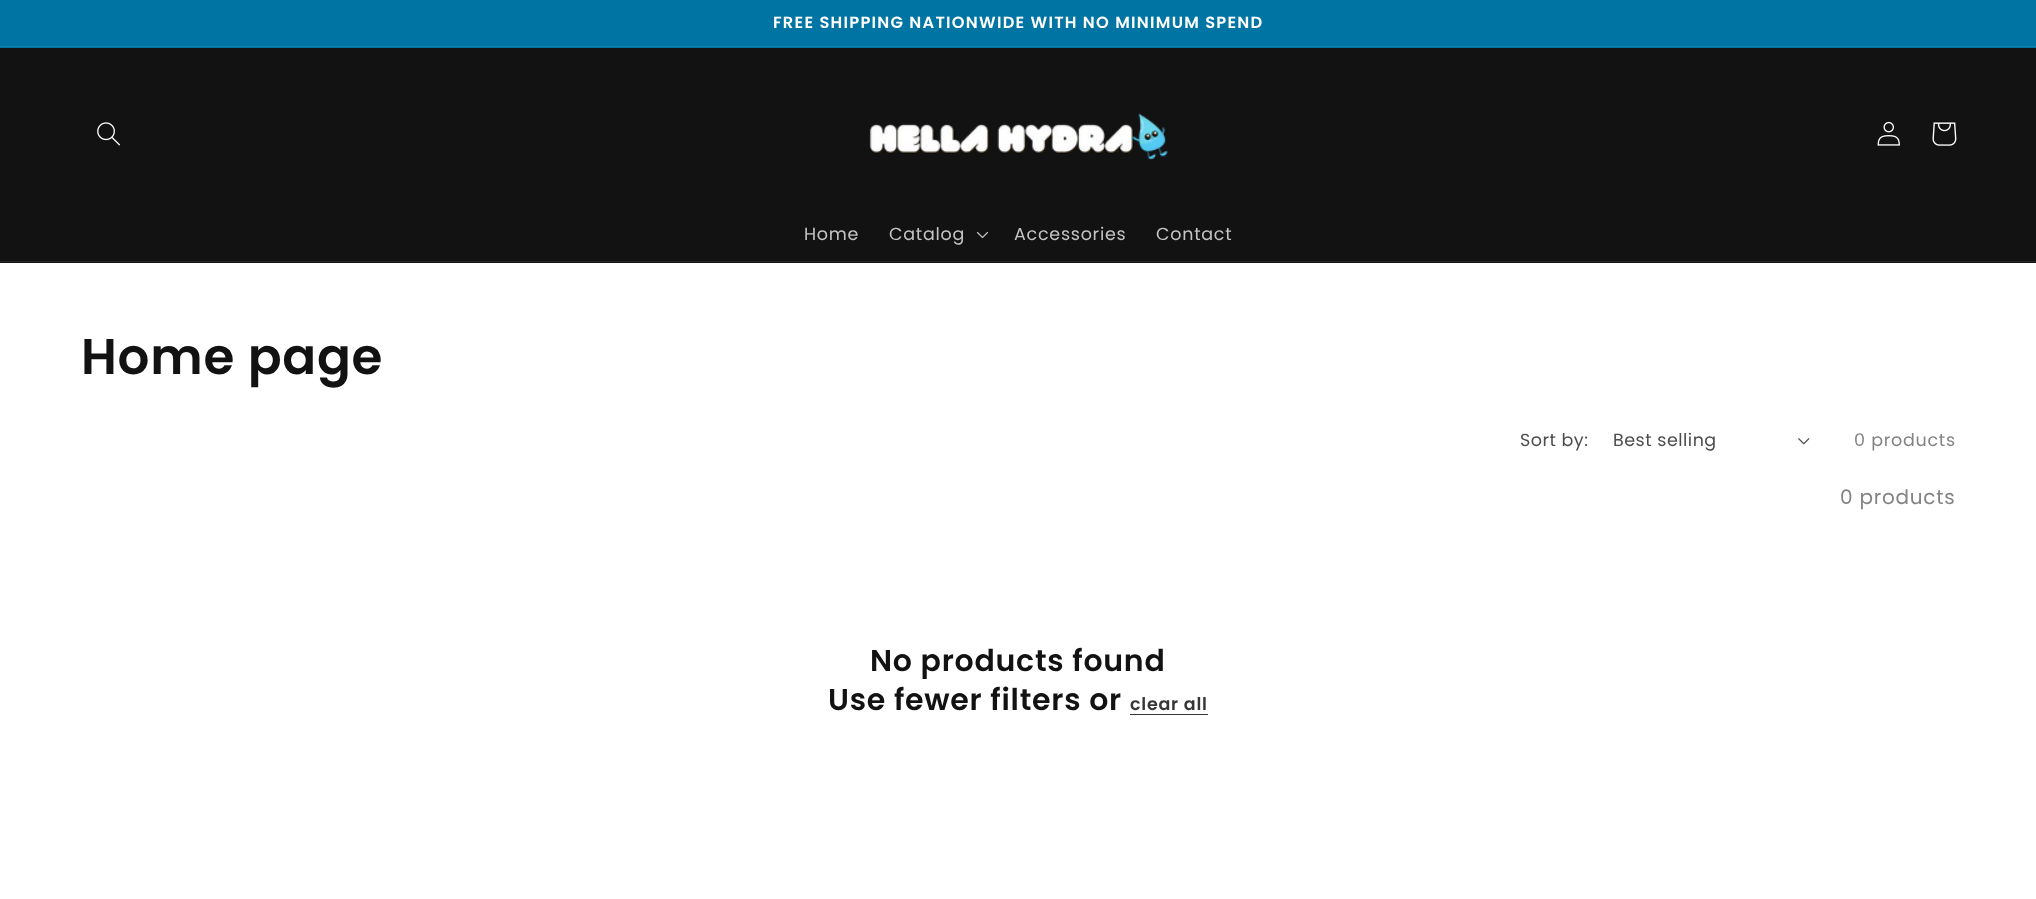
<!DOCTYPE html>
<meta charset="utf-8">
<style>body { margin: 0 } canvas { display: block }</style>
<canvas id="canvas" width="2036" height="899"></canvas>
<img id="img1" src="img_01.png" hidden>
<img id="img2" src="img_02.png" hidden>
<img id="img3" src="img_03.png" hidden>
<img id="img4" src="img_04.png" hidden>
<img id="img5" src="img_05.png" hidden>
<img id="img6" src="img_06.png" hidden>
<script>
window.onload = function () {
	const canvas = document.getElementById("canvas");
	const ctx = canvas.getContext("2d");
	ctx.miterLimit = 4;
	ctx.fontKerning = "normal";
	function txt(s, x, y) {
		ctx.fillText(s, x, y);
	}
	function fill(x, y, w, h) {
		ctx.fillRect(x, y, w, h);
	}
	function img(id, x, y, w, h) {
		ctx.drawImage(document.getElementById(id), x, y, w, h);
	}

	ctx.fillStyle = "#FFFFFF";
	fill(0, 0, 2036, 899);
	ctx.fillStyle = "#0074A3";
	fill(0, 0, 2036, 48);
	ctx.fillStyle = "#147FAA";
	fill(0, 46, 2036, 1);
	ctx.fillStyle = "#121212";
	fill(0, 48, 2036, 215);
	ctx.fillStyle = "#252525";
	fill(0, 261, 2036, 1);
	img("img1", 97, 122, 23, 24);
	img("img2", 869, 113, 299, 47);
	img("img3", 1877, 121, 23, 25);
	img("img4", 1932, 122, 25, 24);
	img("img5", 976, 231, 13, 8);
	img("img6", 1798, 438, 12, 7);
	ctx.fillStyle = "#363636";
	fill(1130, 714, 78, 1);
	ctx.letterSpacing = "1.25px";
	ctx.font = "600 16.25px Poppins";
	ctx.fillStyle = "#FFFFFF";
	txt("FREE SHIPPING NATIONWIDE WITH NO MINIMUM SPEND", 773, 28);
	ctx.letterSpacing = "0.75px";
	ctx.font = "17.5px Poppins";
	ctx.fillStyle = "#C4C4C4";
	txt("Home", 804, 240);
	txt("Catalog", 889, 240);
	txt("Accessories", 1014, 240);
	txt("Contact", 1156, 240);
	ctx.font = "600 50px Poppins";
	ctx.fillStyle = "#121212";
	txt("Home page", 81, 374);
	ctx.letterSpacing = "0.5px";
	ctx.font = "17.5px Poppins";
	ctx.fillStyle = "#4D4D4D";
	txt("Sort by:", 1520, 446);
	txt("Best selling", 1613, 446);
	ctx.letterSpacing = "0.75px";
	ctx.fillStyle = "#838383";
	txt("0 products", 1854, 446);
	ctx.font = "20px Poppins";
	txt("0 products", 1840, 504);
	ctx.font = "600 30px Poppins";
	ctx.fillStyle = "#121212";
	txt("No products found", 870, 671);
	txt("Use fewer filters or", 828, 710);
	ctx.font = "600 17.5px Poppins";
	ctx.fillStyle = "#363636";
	txt("clear all", 1130, 710);
};
</script>
